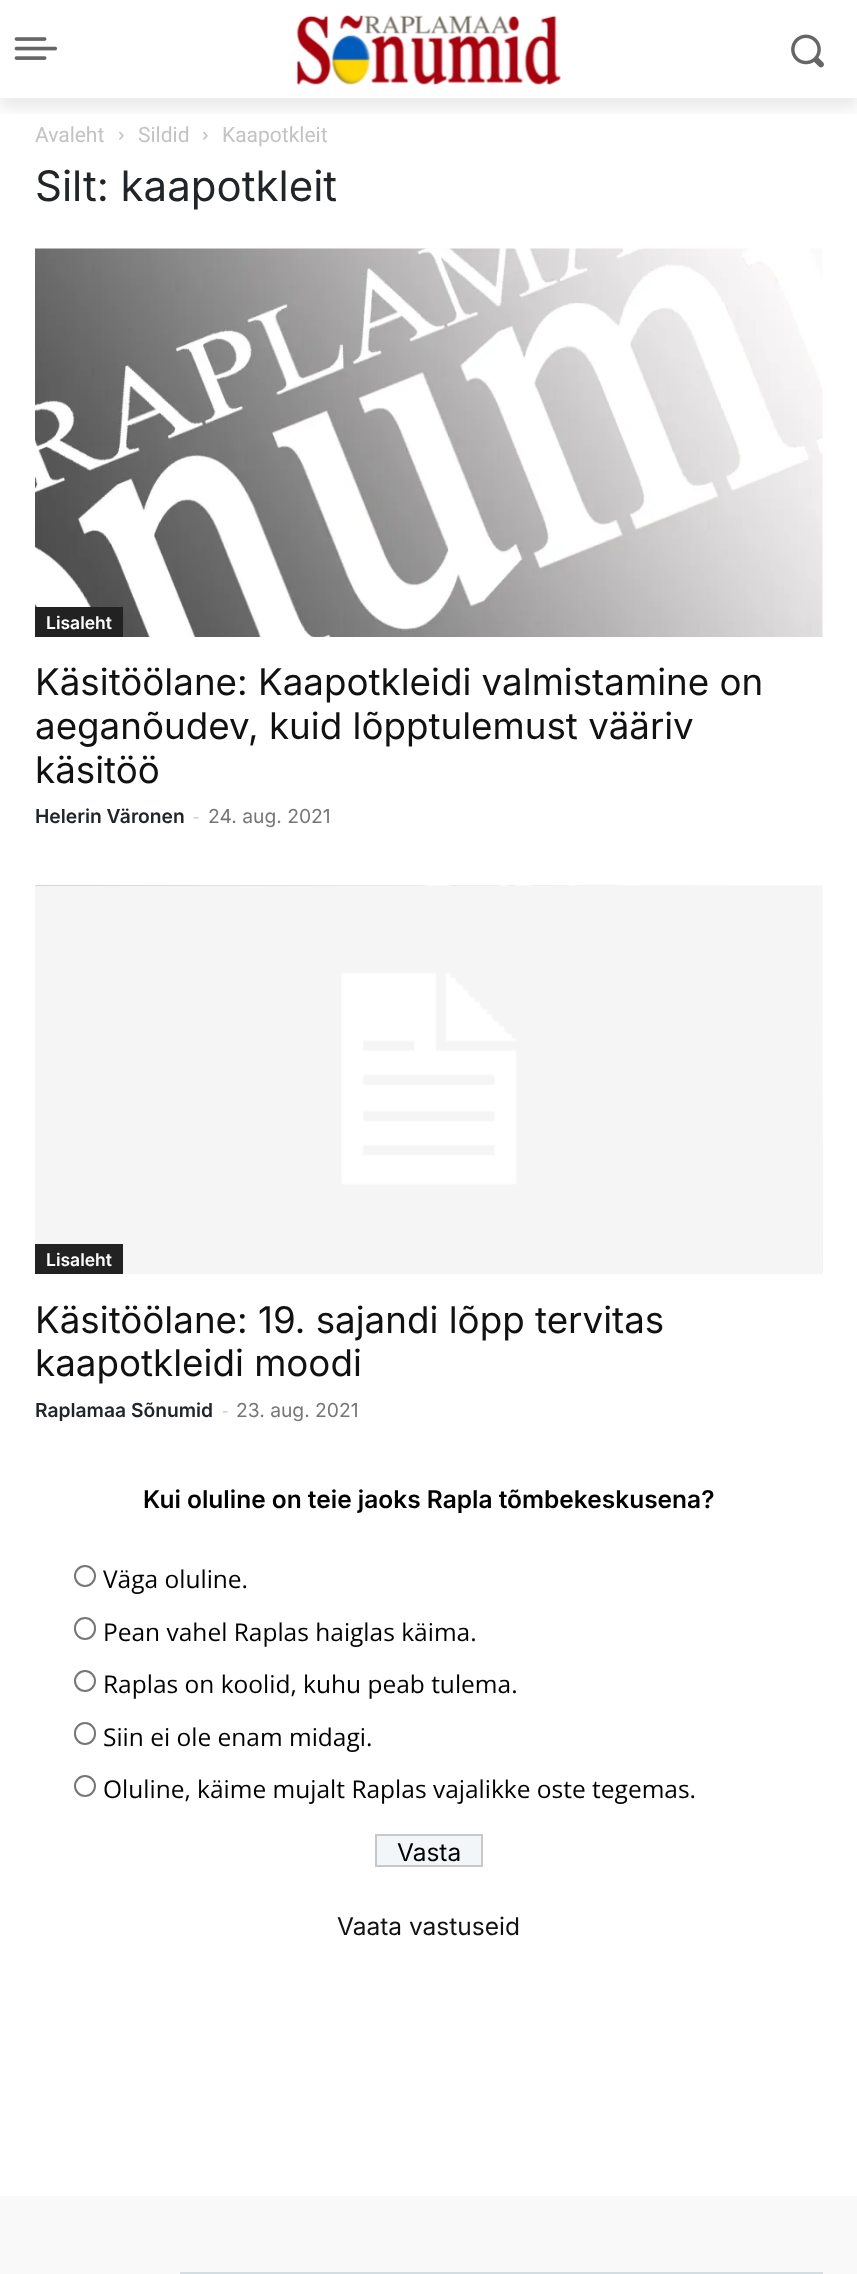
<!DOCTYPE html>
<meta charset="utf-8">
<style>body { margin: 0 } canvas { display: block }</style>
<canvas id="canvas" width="857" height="2274"></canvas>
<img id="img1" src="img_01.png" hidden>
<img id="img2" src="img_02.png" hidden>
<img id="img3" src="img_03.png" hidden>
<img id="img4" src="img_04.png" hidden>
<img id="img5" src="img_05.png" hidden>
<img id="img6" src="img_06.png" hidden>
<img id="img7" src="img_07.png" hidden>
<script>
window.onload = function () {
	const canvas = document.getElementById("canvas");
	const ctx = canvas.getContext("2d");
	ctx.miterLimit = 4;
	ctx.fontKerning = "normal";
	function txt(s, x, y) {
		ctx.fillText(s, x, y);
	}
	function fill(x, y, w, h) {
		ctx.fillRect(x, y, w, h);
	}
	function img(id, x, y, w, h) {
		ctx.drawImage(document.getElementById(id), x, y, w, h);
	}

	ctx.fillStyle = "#FFFFFF";
	fill(0, 0, 857, 2274);
	img("img1", 14, 37, 44, 23);
	img("img2", 297, 15, 264, 70);
	img("img3", 791, 34, 33, 34);
	ctx.save();
	ctx.beginPath();
	ctx.rect(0, 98, 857, 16);
	ctx.clip();
	ctx.fillStyle = "rgba(0, 0, 0, 0.08)";
	ctx.filter = "blur(7px)";
	ctx.beginPath();
	ctx.rect(0, 11, 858, 98);
	ctx.fill();
	ctx.filter = "none";
	ctx.restore();
	img("img4", 119, 131, 5, 9);
	img("img4", 203, 131, 5, 9);
	img("img5", 35, 248, 788, 389);
	ctx.fillStyle = "#222222";
	fill(35, 607, 88, 30);
	img("img6", 35, 885, 788, 389);
	img("img7", 35, 885, 788, 389);
	fill(35, 1244, 88, 30);
	ctx.beginPath();
	ctx.arc(85, 1576, 10, 0, Math.PI * 2);
	ctx.strokeStyle = "#767676";
	ctx.lineWidth = 2;
	ctx.stroke();
	ctx.beginPath();
	ctx.roundRect(75, 1618, 20, 21, 10);
	ctx.stroke();
	ctx.beginPath();
	ctx.arc(85, 1681, 10, 0, Math.PI * 2);
	ctx.stroke();
	ctx.beginPath();
	ctx.roundRect(75, 1723, 20, 21, 10);
	ctx.stroke();
	ctx.beginPath();
	ctx.arc(85, 1786, 10, 0, Math.PI * 2);
	ctx.stroke();
	ctx.fillStyle = "#F3F6F8";
	ctx.beginPath();
	ctx.rect(376, 1835, 106, 31);
	ctx.fill();
	ctx.strokeStyle = "#C8C8C8";
	ctx.stroke();
	ctx.fillStyle = "#F9F9F9";
	fill(0, 2196, 857, 78);
	ctx.fillStyle = "#D3DDE2";
	fill(180, 2272, 643, 2);
	ctx.font = "21px Roboto";
	ctx.fillStyle = "#C3C3C3";
	txt("Avaleht", 35, 142);
	txt("Sildid", 138, 142);
	txt("Kaapotkleit", 222, 142);
	ctx.font = "42px Inter";
	ctx.fillStyle = "#212529";
	txt("Silt: kaapotkleit", 35, 201);
	ctx.font = "600 17.5px Inter";
	ctx.fillStyle = "#FFFFFF";
	txt("Lisaleht", 46, 629);
	ctx.font = "36.75px Inter";
	ctx.fillStyle = "#111111";
	txt("Käsitöölane: Kaapotkleidi valmistamine on", 35, 695);
	txt("aeganõudev, kuid lõpptulemust vääriv", 35, 739);
	txt("käsitöö", 35, 783);
	ctx.font = "600 19.25px Inter";
	ctx.fillStyle = "#212529";
	txt("Helerin Väronen", 35, 823);
	ctx.font = "19.25px Open Sans";
	ctx.fillStyle = "#CCCCCC";
	txt("-", 193, 823);
	ctx.font = "19.25px Inter";
	ctx.fillStyle = "#767676";
	txt("24. aug. 2021", 208, 823);
	ctx.font = "600 17.5px Inter";
	ctx.fillStyle = "#FFFFFF";
	txt("Lisaleht", 46, 1266);
	ctx.font = "36.75px Inter";
	ctx.fillStyle = "#111111";
	txt("Käsitöölane: 19. sajandi lõpp tervitas", 35, 1333);
	txt("kaapotkleidi moodi", 35, 1376);
	ctx.font = "600 19.25px Inter";
	ctx.fillStyle = "#212529";
	txt("Raplamaa Sõnumid", 35, 1417);
	ctx.font = "19.25px Open Sans";
	ctx.fillStyle = "#CCCCCC";
	txt("-", 222, 1417);
	ctx.font = "19.25px Inter";
	ctx.fillStyle = "#767676";
	txt("23. aug. 2021", 236, 1417);
	ctx.font = "600 24.5px Inter";
	ctx.fillStyle = "#000000";
	txt("Kui oluline on teie jaoks Rapla tõmbekeskusena?", 143, 1508);
	ctx.font = "24.5px Open Sans";
	txt("Väga oluline.", 103, 1588);
	txt("Pean vahel Raplas haiglas käima.", 103, 1641);
	txt("Raplas on koolid, kuhu peab tulema.", 103, 1693);
	txt("Siin ei ole enam midagi.", 103, 1746);
	txt("Oluline, käime mujalt Raplas vajalikke oste tegemas.", 103, 1798);
	ctx.font = "24.5px Inter";
	txt("Vasta", 397, 1861);
	ctx.fillStyle = "#111111";
	txt("Vaata vastuseid", 337, 1935);
};
</script>
